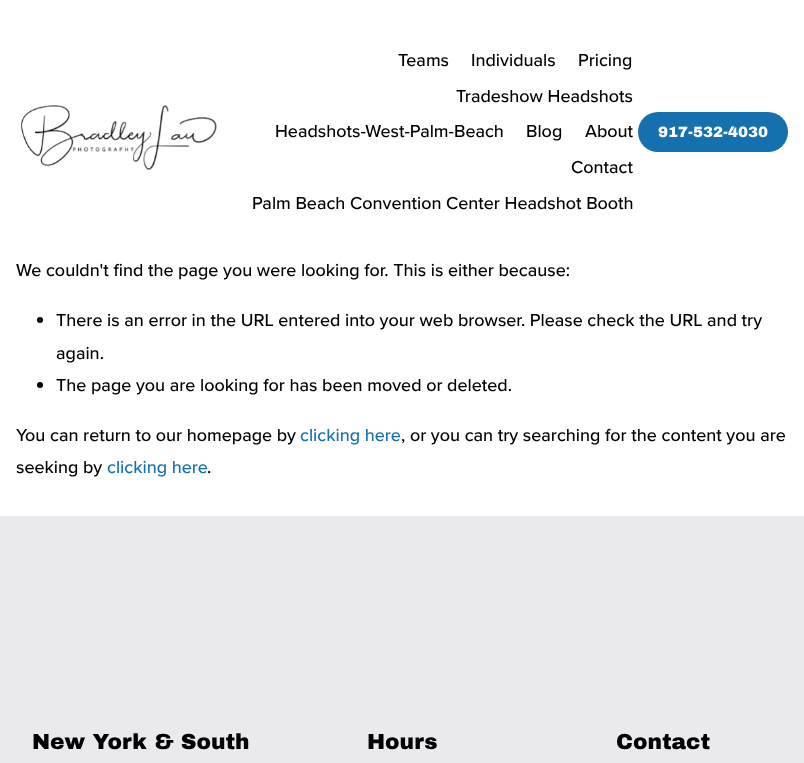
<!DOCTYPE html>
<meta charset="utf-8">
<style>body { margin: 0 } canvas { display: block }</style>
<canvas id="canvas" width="804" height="763"></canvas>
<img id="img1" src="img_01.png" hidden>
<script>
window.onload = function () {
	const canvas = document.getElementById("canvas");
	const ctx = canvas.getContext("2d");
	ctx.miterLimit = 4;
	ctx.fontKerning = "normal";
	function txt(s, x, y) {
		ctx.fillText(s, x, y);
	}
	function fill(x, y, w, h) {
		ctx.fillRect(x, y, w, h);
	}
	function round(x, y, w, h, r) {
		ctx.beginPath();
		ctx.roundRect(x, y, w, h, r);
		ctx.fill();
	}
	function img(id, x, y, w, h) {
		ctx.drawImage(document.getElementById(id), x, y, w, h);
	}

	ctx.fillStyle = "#FFFFFF";
	fill(0, 0, 804, 763);
	img("img1", 20, 105, 197, 66);
	ctx.fillStyle = "#1470AF";
	round(638, 112, 150, 40, 20);
	ctx.fillStyle = "#000000";
	ctx.beginPath();
	ctx.arc(40, 320, 3, 0, Math.PI * 2);
	ctx.fill();
	ctx.beginPath();
	ctx.arc(40, 385, 3, 0, Math.PI * 2);
	ctx.fill();
	ctx.fillStyle = "#EAEAEE";
	fill(0, 516, 804, 247);
	ctx.font = "500 17.95px Proxima Nova";
	ctx.fillStyle = "#000000";
	txt("Teams", 398, 66);
	txt("Individuals", 471, 66);
	txt("Pricing", 578, 66);
	txt("Tradeshow Headshots", 456, 102);
	txt("Headshots-West-Palm-Beach", 275, 137);
	txt("Blog", 526, 137);
	txt("About", 585, 137);
	txt("Contact", 571, 173);
	txt("Palm Beach Convention Center Headshot Booth", 252, 209);
	ctx.font = "900 15px Archivo Black";
	ctx.fillStyle = "#FFFFFF";
	txt("917-532-4030", 658, 137);
	ctx.font = "500 17.95px Proxima Nova";
	ctx.fillStyle = "#000000";
	txt("We couldn't find the page you were looking for. This is either because:", 16, 276);
	txt("There is an error in the URL entered into your web browser. Please check the URL and try", 56, 326);
	txt("again.", 56, 359);
	txt("The page you are looking for has been moved or deleted.", 56, 391);
	txt("You can return to our homepage by", 16, 441);
	ctx.fillStyle = "#1470AF";
	txt("clicking here", 300, 441);
	ctx.fillStyle = "#000000";
	txt(", or you can try searching for the content you are", 401, 441);
	txt("seeking by", 16, 473);
	ctx.fillStyle = "#1470AF";
	txt("clicking here", 107, 473);
	ctx.fillStyle = "#000000";
	txt(".", 207, 473);
	ctx.font = "900 21.75px Archivo Black";
	txt("New York & South", 32, 749);
	txt("Hours", 367, 749);
	txt("Contact", 616, 749);
};
</script>
